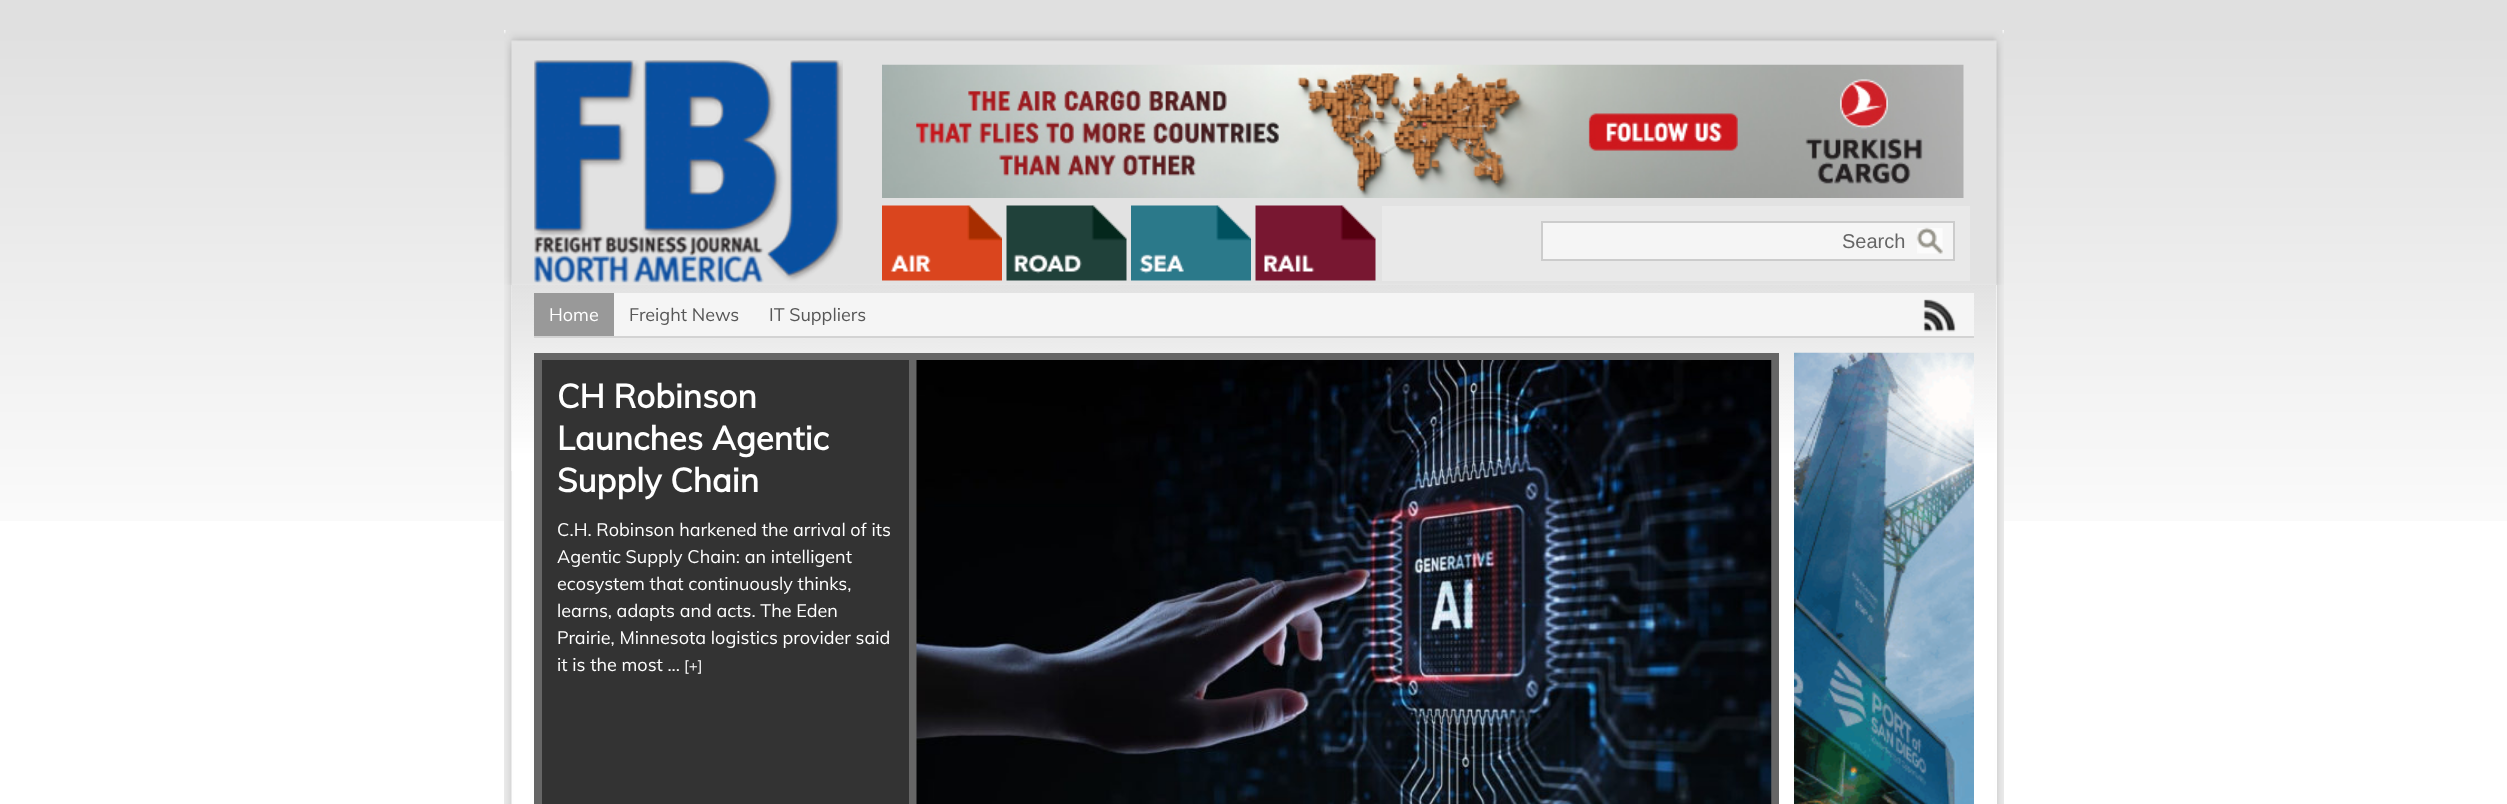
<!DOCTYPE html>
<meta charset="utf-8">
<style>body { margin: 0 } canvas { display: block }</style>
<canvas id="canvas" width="2507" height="804"></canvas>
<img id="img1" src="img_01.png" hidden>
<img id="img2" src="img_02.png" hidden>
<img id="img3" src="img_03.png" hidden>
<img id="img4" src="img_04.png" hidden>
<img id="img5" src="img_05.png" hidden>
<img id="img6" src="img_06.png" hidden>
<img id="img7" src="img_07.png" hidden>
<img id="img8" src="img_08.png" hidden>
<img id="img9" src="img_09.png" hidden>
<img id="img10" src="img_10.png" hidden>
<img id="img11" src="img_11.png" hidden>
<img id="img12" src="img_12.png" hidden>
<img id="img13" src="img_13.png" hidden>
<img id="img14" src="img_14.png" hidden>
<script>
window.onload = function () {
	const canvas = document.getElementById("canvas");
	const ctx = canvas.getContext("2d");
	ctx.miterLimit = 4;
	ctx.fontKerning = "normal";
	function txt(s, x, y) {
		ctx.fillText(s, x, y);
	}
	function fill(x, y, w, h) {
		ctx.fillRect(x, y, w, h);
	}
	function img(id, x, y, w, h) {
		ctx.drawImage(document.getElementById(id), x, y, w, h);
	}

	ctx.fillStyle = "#FFFFFF";
	fill(0, 0, 2507, 804);
	img("img1", 0, 0, 2507, 521);
	img("img2", 504, 30, 1500, 255);
	img("img3", 534, 60, 309, 223);
	img("img4", 882, 64, 1082, 134);
	img("img5", 882, 205, 120, 76);
	img("img6", 1006, 205, 121, 76);
	img("img7", 1131, 205, 120, 76);
	img("img8", 1255, 205, 121, 76);
	ctx.fillStyle = "#E9E9E9";
	fill(1382, 206, 588, 75);
	ctx.fillStyle = "#F5F5F5";
	fill(1543, 223, 410, 36);
	img("img9", 1916, 227, 27, 27);
	ctx.strokeStyle = "#CCCCCC";
	ctx.lineWidth = 2;
	ctx.strokeRect(1542, 222, 412, 38);
	img("img10", 504, 285, 1500, 519);
	ctx.fillStyle = "#FFFFFF";
	fill(1996, 285, 1, 519);
	img("img11", 511, 285, 1486, 186);
	ctx.fillStyle = "#F5F5F5";
	fill(614, 293, 1360, 43);
	ctx.fillStyle = "#D3D3D3";
	fill(534, 336, 1440, 2);
	ctx.fillStyle = "#999999";
	fill(534, 293, 80, 43);
	img("img12", 1923, 299, 33, 33);
	ctx.fillStyle = "#666666";
	fill(534, 353, 1245, 451);
	ctx.fillStyle = "#333333";
	fill(542, 360, 367, 444);
	img("img13", 916, 360, 856, 444);
	img("img14", 1794, 352, 180, 452);
	ctx.font = "20px Liberation Sans";
	ctx.fillStyle = "#666666";
	txt("Search", 1842, 248);
	ctx.font = "18px Muli";
	ctx.fillStyle = "#FFFFFF";
	txt("Home", 549, 321);
	ctx.fillStyle = "#575757";
	txt("Freight News", 629, 321);
	txt("IT Suppliers", 769, 321);
	ctx.font = "bold 33px Muli";
	ctx.fillStyle = "#FFFFFF";
	txt("CH Robinson", 557, 408);
	txt("Launches Agentic", 557, 450);
	txt("Supply Chain", 557, 492);
	ctx.font = "18px Muli";
	txt("C.H. Robinson harkened the arrival of its", 557, 536);
	txt("Agentic Supply Chain: an intelligent", 557, 563);
	txt("ecosystem that continuously thinks,", 557, 590);
	txt("learns, adapts and acts. The Eden", 557, 617);
	txt("Prairie, Minnesota logistics provider said", 557, 644);
	txt("it is the most ...", 557, 671);
	ctx.font = "15px Muli";
	txt("[+]", 684, 671);
};
</script>
